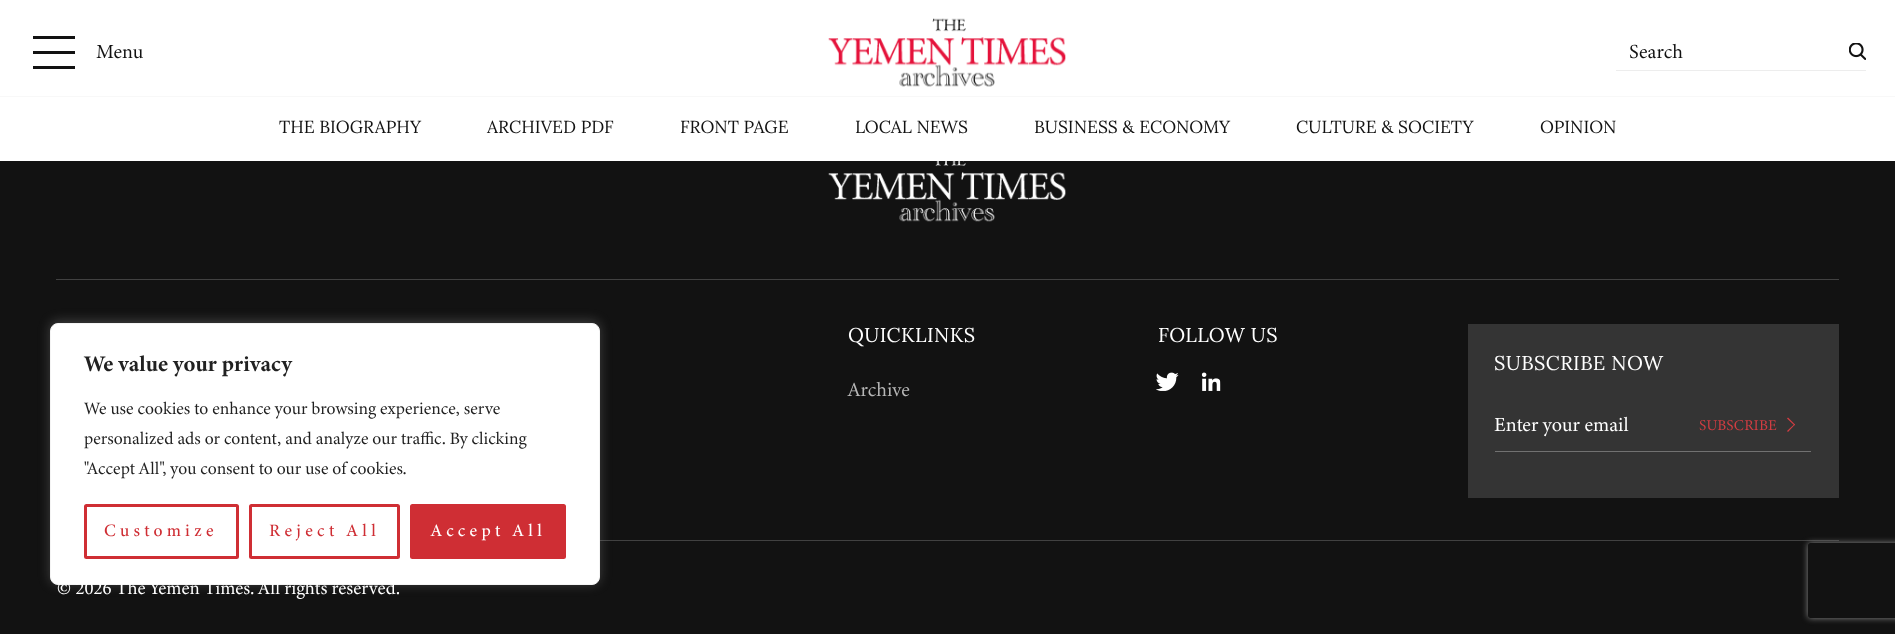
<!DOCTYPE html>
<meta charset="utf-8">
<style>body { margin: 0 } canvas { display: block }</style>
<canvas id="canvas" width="1895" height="634"></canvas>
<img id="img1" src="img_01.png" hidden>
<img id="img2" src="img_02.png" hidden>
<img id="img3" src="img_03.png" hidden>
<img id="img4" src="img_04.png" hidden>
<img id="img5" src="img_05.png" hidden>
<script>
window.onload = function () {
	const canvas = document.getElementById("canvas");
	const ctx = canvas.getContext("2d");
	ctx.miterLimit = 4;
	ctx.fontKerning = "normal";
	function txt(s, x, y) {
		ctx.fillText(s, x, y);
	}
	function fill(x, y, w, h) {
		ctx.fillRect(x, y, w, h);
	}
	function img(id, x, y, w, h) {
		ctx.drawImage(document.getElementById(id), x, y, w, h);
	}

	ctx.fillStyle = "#121212";
	fill(0, 0, 1895, 634);
	ctx.fillStyle = "#FFFFFF";
	fill(0, 0, 1895, 161);
	ctx.fillStyle = "#121212";
	fill(33, 36, 42, 3);
	fill(33, 51, 42, 3);
	fill(33, 66, 42, 3);
	img("img1", 828, 18, 238, 69);
	img("img2", 1849, 43, 17, 17);
	ctx.fillStyle = "#EDEDED";
	fill(1616, 70, 250, 1);
	ctx.fillStyle = "#F8F8F8";
	fill(0, 96, 1895, 1);
	img("img3", 828, 161, 238, 61);
	ctx.fillStyle = "#414141";
	fill(56, 279, 1783, 1);
	fill(600, 540, 1239, 1);
	img("img4", 1156, 372, 23, 19);
	img("img5", 1201, 372, 20, 19);
	ctx.fillStyle = "#343434";
	fill(1468, 324, 371, 174);
	ctx.fillStyle = "#717171";
	fill(1495, 451, 316, 1);
	ctx.fillStyle = "#D23D42";
	ctx.beginPath();
	ctx.moveTo(1788, 417.5);
	ctx.lineTo(1795, 424.5);
	ctx.lineTo(1794.5, 425.5);
	ctx.lineTo(1787, 418.5);
	ctx.closePath();
	ctx.fill();
	ctx.beginPath();
	ctx.moveTo(1794.5, 424);
	ctx.lineTo(1795, 424.5);
	ctx.lineTo(1788, 432);
	ctx.lineTo(1787, 431);
	ctx.closePath();
	ctx.fill();
	ctx.fillStyle = "rgba(172, 171, 171, 0.3)";
	ctx.filter = "blur(6px)";
	ctx.beginPath();
	ctx.roundRect(50, 321, 550, 263, 8);
	ctx.fill();
	ctx.filter = "none";
	ctx.fillStyle = "#FFFFFF";
	ctx.beginPath();
	ctx.roundRect(50.5, 323.5, 549, 261, 7.5);
	ctx.fill();
	ctx.strokeStyle = "#F4F4F4";
	ctx.stroke();
	ctx.beginPath();
	ctx.roundRect(85.5, 505.5, 152, 52, 1);
	ctx.strokeStyle = "#CF2E34";
	ctx.lineWidth = 3;
	ctx.stroke();
	ctx.beginPath();
	ctx.roundRect(250.5, 505.5, 148, 52, 1);
	ctx.stroke();
	ctx.fillStyle = "#CF2E34";
	ctx.beginPath();
	ctx.roundRect(411.5, 505.5, 153, 52, 1);
	ctx.fill();
	ctx.stroke();
	ctx.save();
	ctx.beginPath();
	ctx.moveTo(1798, 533);
	ctx.lineTo(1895, 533);
	ctx.lineTo(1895, 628);
	ctx.lineTo(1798, 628);
	ctx.closePath();
	ctx.moveTo(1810.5, 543);
	ctx.lineTo(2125.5, 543);
	ctx.bezierCurveTo(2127, 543, 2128, 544, 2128, 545.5);
	ctx.lineTo(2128, 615.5);
	ctx.bezierCurveTo(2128, 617, 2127, 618, 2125.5, 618);
	ctx.lineTo(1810.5, 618);
	ctx.bezierCurveTo(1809, 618, 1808, 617, 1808, 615.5);
	ctx.lineTo(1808, 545.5);
	ctx.bezierCurveTo(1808, 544, 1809, 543, 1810.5, 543);
	ctx.closePath();
	ctx.clip("evenodd");
	ctx.fillStyle = "#898989";
	ctx.filter = "blur(3px)";
	ctx.beginPath();
	ctx.roundRect(1808, 543, 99, 75, 2.5);
	ctx.fill();
	ctx.filter = "none";
	ctx.restore();
	ctx.font = "20px 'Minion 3'";
	ctx.fillStyle = "#121212";
	txt("Menu", 96, 58);
	txt("Search", 1629, 58);
	ctx.font = "17.5px Lora";
	txt("THE BIOGRAPHY", 279, 133);
	txt("ARCHIVED PDF", 487, 133);
	txt("FRONT PAGE", 680, 133);
	txt("LOCAL NEWS", 855, 133);
	txt("BUSINESS & ECONOMY", 1034, 133);
	txt("CULTURE & SOCIETY", 1296, 133);
	txt("OPINION", 1540, 133);
	ctx.letterSpacing = "0.4px";
	ctx.font = "20px Lora";
	ctx.fillStyle = "#FFFFFF";
	txt("QUICKLINKS", 848, 342);
	ctx.letterSpacing = "0px";
	ctx.font = "20px 'Minion 3'";
	ctx.fillStyle = "#B6B6B6";
	txt("Archive", 848, 396);
	ctx.letterSpacing = "0.4px";
	ctx.font = "20px Lora";
	ctx.fillStyle = "#FFFFFF";
	txt("FOLLOW US", 1158, 342);
	txt("SUBSCRIBE NOW", 1494, 370);
	ctx.letterSpacing = "0px";
	ctx.font = "20px 'Minion 3'";
	txt("Enter your email", 1494, 431);
	ctx.font = "15px 'Minion 3'";
	ctx.fillStyle = "#D23D42";
	txt("SUBSCRIBE", 1699, 430);
	ctx.font = "18.75px 'Minion 3'";
	ctx.fillStyle = "#FFFFFF";
	txt("© 2026 The Yemen Times. All rights reserved.", 57, 594);
	ctx.font = "bold 22.5px 'Minion 3'";
	ctx.fillStyle = "#212121";
	txt("We value your privacy", 84, 371);
	ctx.font = "17.5px 'Minion 3'";
	txt("We use cookies to enhance your browsing experience, serve", 84, 414);
	txt("personalized ads or content, and analyze our traffic. By clicking", 84, 444);
	txt("\"Accept All\", you consent to our use of cookies.", 84, 474);
	ctx.letterSpacing = "4.25px";
	ctx.font = "500 17.5px 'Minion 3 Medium'";
	ctx.fillStyle = "#CF2E34";
	txt("Customize", 104, 536);
	txt("Reject All", 269, 536);
	ctx.fillStyle = "#FFFFFF";
	txt("Accept All", 431, 536);
};
</script>
